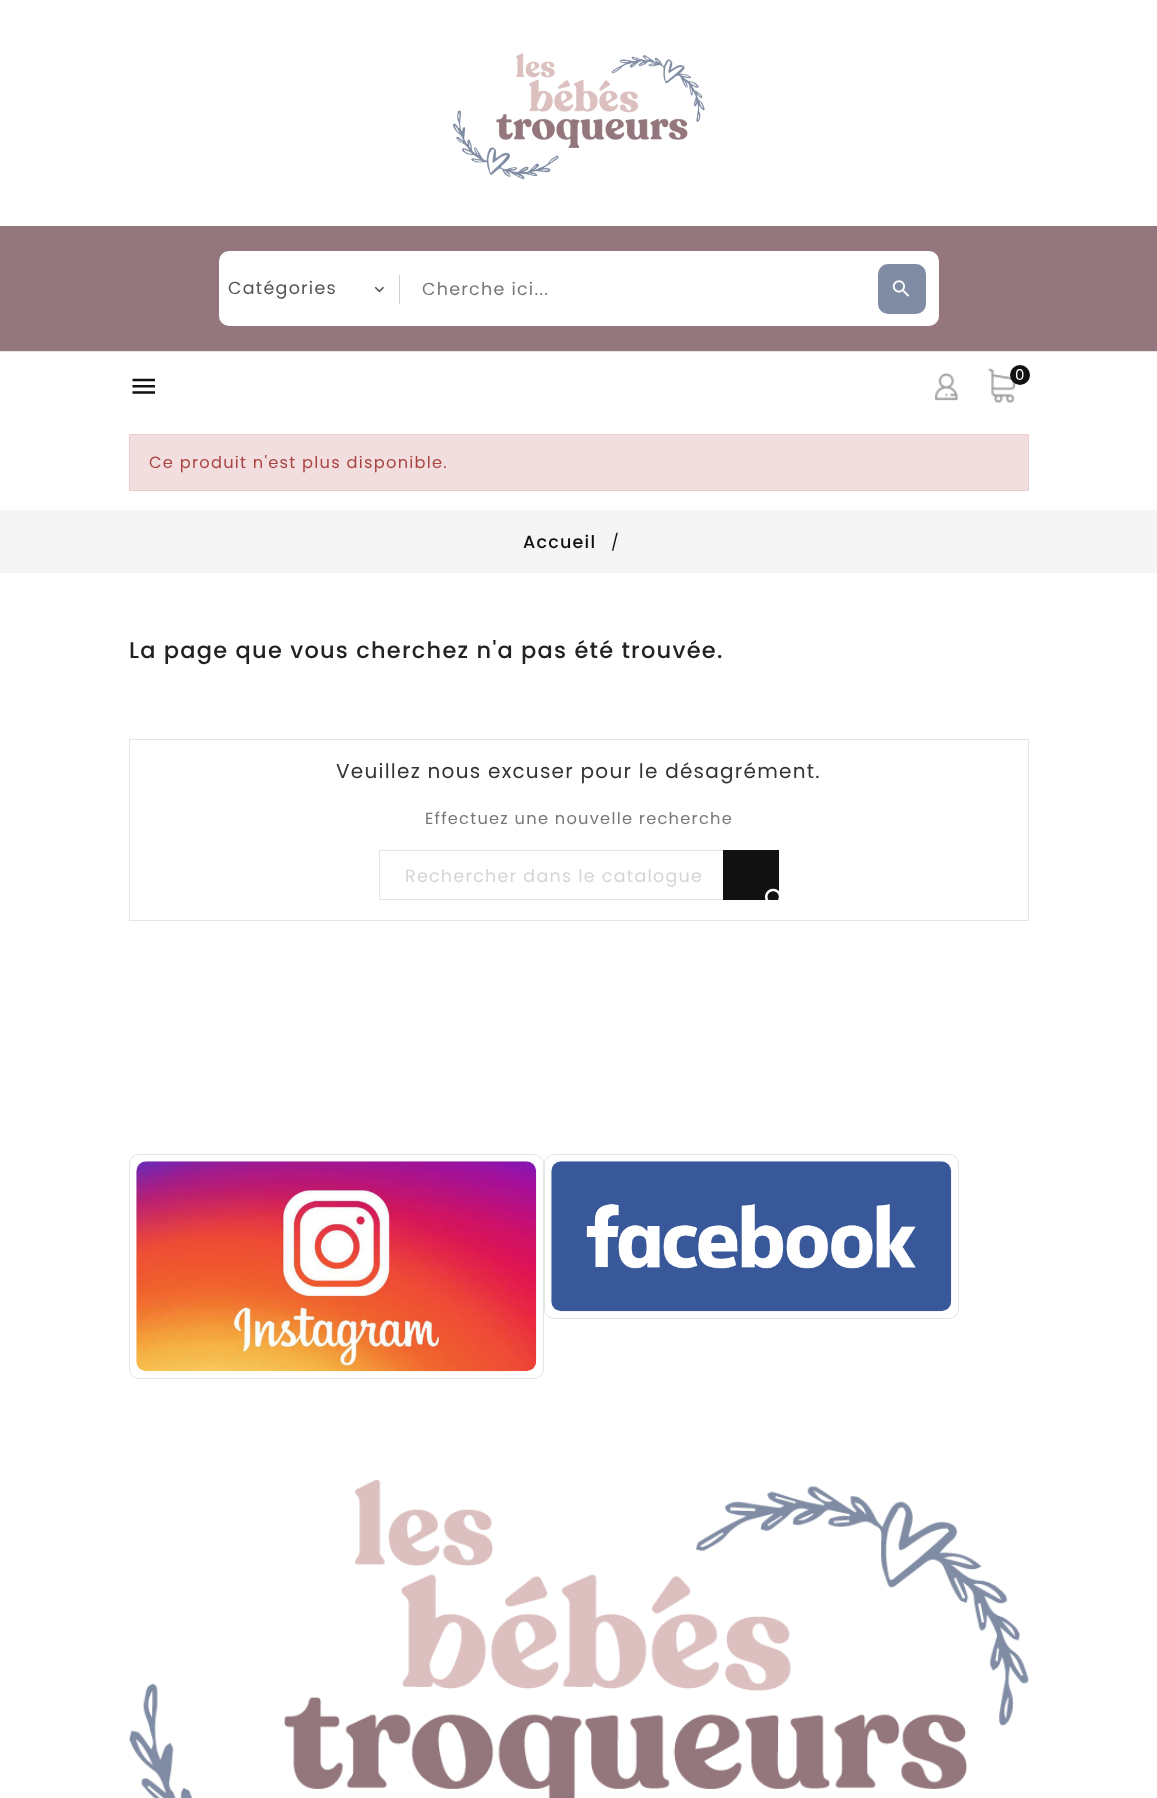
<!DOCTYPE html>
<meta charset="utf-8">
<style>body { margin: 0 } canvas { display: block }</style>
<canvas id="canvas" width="1157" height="1798"></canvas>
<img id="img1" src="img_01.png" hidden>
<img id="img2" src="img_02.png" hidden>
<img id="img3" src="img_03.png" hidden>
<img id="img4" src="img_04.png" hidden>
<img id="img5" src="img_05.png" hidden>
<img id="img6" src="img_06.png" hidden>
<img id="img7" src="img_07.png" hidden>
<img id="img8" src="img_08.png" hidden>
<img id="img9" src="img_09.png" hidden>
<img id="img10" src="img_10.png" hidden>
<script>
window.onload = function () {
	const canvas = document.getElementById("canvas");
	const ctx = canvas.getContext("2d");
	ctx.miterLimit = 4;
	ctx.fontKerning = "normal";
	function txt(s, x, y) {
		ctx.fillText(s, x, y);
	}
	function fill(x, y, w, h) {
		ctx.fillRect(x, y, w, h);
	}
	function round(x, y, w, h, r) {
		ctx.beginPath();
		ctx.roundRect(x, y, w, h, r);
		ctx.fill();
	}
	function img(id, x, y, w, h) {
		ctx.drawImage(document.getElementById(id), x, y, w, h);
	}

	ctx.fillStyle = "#FFFFFF";
	fill(0, 0, 1157, 1798);
	img("img1", 452, 53, 253, 127);
	ctx.fillStyle = "#93777C";
	fill(0, 226, 1157, 125);
	ctx.fillStyle = "#FFFFFF";
	round(219, 251, 720, 75, 10);
	img("img2", 374, 286, 10, 7);
	ctx.fillStyle = "#CFCFCF";
	fill(399, 275, 1, 29);
	ctx.fillStyle = "#808CA3";
	round(878, 264, 48, 50, 10);
	img("img3", 892, 280, 18, 17);
	ctx.fillStyle = "#E5E5E5";
	fill(0, 351, 1157, 1);
	img("img4", 132, 378, 23, 16);
	img("img5", 934, 373, 24, 28);
	img("img6", 988, 368, 28, 35);
	ctx.fillStyle = "#111111";
	ctx.beginPath();
	ctx.arc(1020, 375, 10, 0, Math.PI * 2);
	ctx.fill();
	ctx.fillStyle = "#F2DEDE";
	ctx.beginPath();
	ctx.rect(129.5, 434.5, 899, 56);
	ctx.fill();
	ctx.strokeStyle = "#EBCCCC";
	ctx.stroke();
	ctx.fillStyle = "#F5F5F5";
	fill(0, 510, 1157, 63);
	ctx.strokeStyle = "#E5E5E5";
	ctx.strokeRect(129.5, 739.5, 899, 181);
	ctx.strokeRect(379.5, 850.5, 399, 49);
	ctx.fillStyle = "#111111";
	fill(723, 850, 56, 50);
	img("img7", 765, 888, 14, 12);
	ctx.beginPath();
	ctx.roundRect(129.5, 1154.5, 414, 224, 9.5);
	ctx.stroke();
	img("img8", 136, 1161, 401, 211);
	ctx.beginPath();
	ctx.roundRect(544.5, 1154.5, 414, 164, 9.5);
	ctx.stroke();
	img("img9", 551, 1161, 401, 151);
	img("img10", 128, 1480, 901, 318);
	ctx.letterSpacing = "1.25px";
	ctx.font = "17.5px Poppins";
	ctx.fillStyle = "#555555";
	txt("Catégories", 228, 294);
	ctx.fillStyle = "#777777";
	txt("Cherche ici...", 422, 295);
	ctx.font = "15px Poppins";
	ctx.fillStyle = "#FFFFFF";
	txt("0", 1015, 380);
	ctx.font = "16.25px Poppins";
	ctx.fillStyle = "#A94442";
	txt("Ce produit n'est plus disponible.", 149, 468);
	ctx.font = "500 17.5px Poppins";
	ctx.fillStyle = "#111111";
	txt("Accueil", 523, 548);
	ctx.font = "16.25px Poppins";
	txt("/", 611, 548);
	ctx.font = "500 22.5px Poppins";
	ctx.fillStyle = "#222222";
	txt("La page que vous cherchez n'a pas été trouvée.", 129, 658);
	ctx.font = "20px Poppins";
	ctx.fillStyle = "#333333";
	txt("Veuillez nous excuser pour le désagrément.", 336, 778);
	ctx.font = "16.25px Poppins";
	ctx.fillStyle = "#777777";
	txt("Effectuez une nouvelle recherche", 425, 824);
	ctx.font = "17.5px Poppins";
	ctx.fillStyle = "#D6D5D3";
	txt("Rechercher dans le catalogue", 405, 882);
};
</script>
